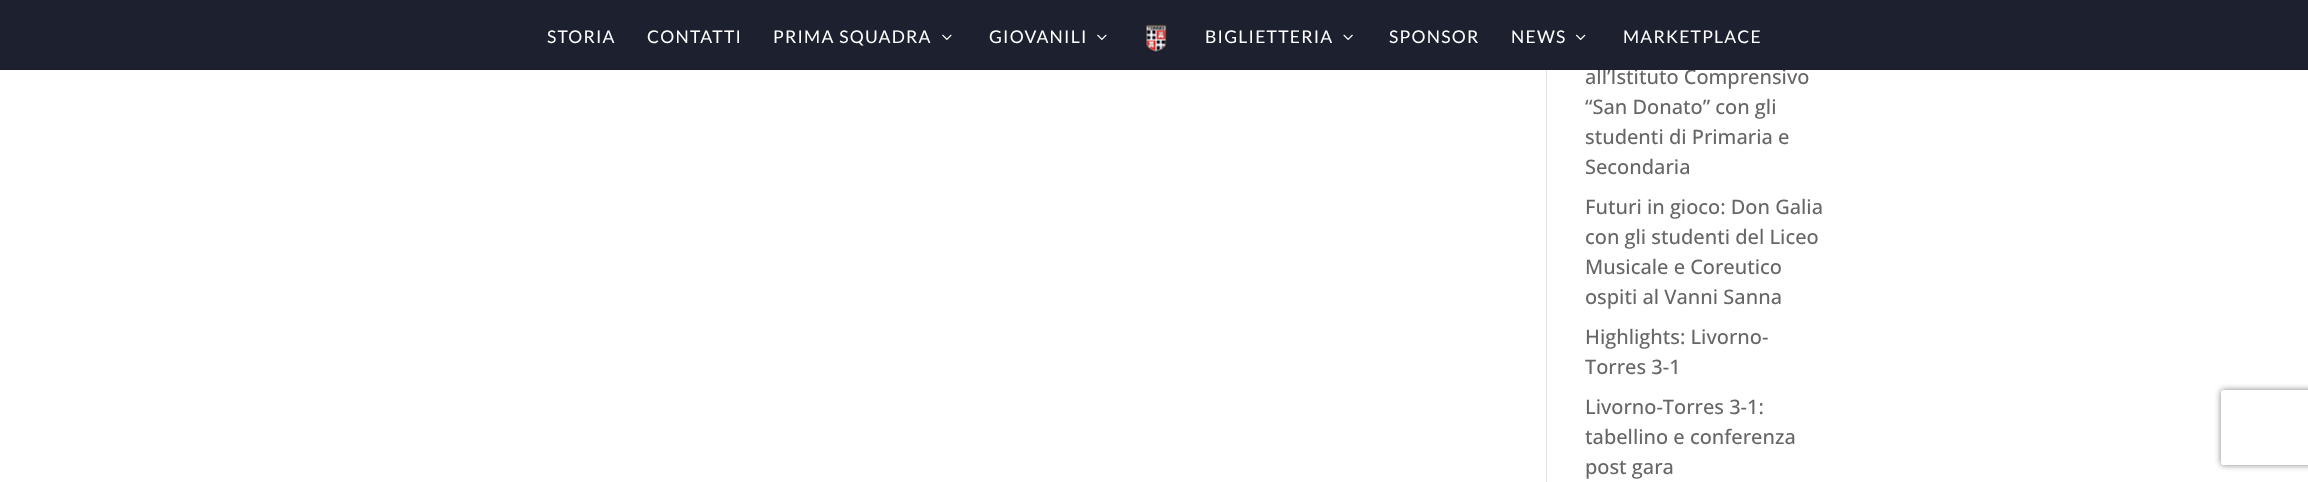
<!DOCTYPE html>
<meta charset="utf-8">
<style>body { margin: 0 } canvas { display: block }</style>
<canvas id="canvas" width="2308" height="482"></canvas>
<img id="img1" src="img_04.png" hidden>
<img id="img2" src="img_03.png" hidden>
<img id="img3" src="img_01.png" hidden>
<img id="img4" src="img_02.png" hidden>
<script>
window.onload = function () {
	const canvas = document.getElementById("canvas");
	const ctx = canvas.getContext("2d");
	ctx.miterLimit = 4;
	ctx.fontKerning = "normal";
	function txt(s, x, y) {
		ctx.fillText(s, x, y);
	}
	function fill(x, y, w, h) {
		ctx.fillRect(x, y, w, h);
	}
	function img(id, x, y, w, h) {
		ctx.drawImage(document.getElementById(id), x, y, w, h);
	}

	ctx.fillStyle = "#FFFFFF";
	fill(0, 0, 2308, 482);
	ctx.fillStyle = "#E2E2E2";
	fill(1546, 0, 1, 482);
	ctx.save();
	ctx.beginPath();
	ctx.moveTo(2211, 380);
	ctx.lineTo(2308, 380);
	ctx.lineTo(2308, 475);
	ctx.lineTo(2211, 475);
	ctx.closePath();
	ctx.moveTo(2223.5, 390);
	ctx.lineTo(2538.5, 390);
	ctx.bezierCurveTo(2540, 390, 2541, 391, 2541, 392.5);
	ctx.lineTo(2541, 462.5);
	ctx.bezierCurveTo(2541, 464, 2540, 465, 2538.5, 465);
	ctx.lineTo(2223.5, 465);
	ctx.bezierCurveTo(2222, 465, 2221, 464, 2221, 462.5);
	ctx.lineTo(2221, 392.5);
	ctx.bezierCurveTo(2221, 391, 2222, 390, 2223.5, 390);
	ctx.closePath();
	ctx.clip("evenodd");
	ctx.fillStyle = "#808080";
	ctx.filter = "blur(3px)";
	ctx.beginPath();
	ctx.roundRect(2221, 390, 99, 75, 2.5);
	ctx.fill();
	ctx.filter = "none";
	ctx.restore();
	ctx.font = "500 20px Open Sans";
	ctx.fillStyle = "#666666";
	txt("all’Istituto Comprensivo", 1585, 84);
	ctx.fillStyle = "rgba(15, 19, 34, 0.94)";
	fill(0, 0, 2308, 70);
	ctx.letterSpacing = "1.25px";
	ctx.font = "17.5px Lato";
	ctx.fillStyle = "#FFFFFF";
	txt("MARKETPLACE", 1623, 43);
	img("img1", 1576, 34, 10, 6);
	txt("NEWS", 1511, 43);
	txt("SPONSOR", 1389, 43);
	img("img2", 1343, 34, 10, 6);
	txt("BIGLIETTERIA", 1205, 43);
	img("img3", 1097, 34, 10, 6);
	txt("GIOVANILI", 989, 43);
	img("img3", 942, 34, 10, 6);
	txt("PRIMA SQUADRA", 773, 43);
	txt("CONTATTI", 647, 43);
	txt("STORIA", 547, 43);
	img("img4", 1145, 24, 22, 29);
	ctx.letterSpacing = "0px";
	ctx.font = "500 20px Open Sans";
	ctx.fillStyle = "#666666";
	txt("“San Donato” con gli", 1585, 114);
	txt("studenti di Primaria e", 1585, 144);
	txt("Secondaria", 1585, 174);
	txt("Futuri in gioco: Don Galia", 1585, 214);
	txt("con gli studenti del Liceo", 1585, 244);
	txt("Musicale e Coreutico", 1585, 274);
	txt("ospiti al Vanni Sanna", 1585, 304);
	txt("Highlights: Livorno-", 1585, 344);
	txt("Torres 3-1", 1585, 374);
	txt("Livorno-Torres 3-1:", 1585, 414);
	txt("tabellino e conferenza", 1585, 444);
	txt("post gara", 1585, 474);
};
</script>
